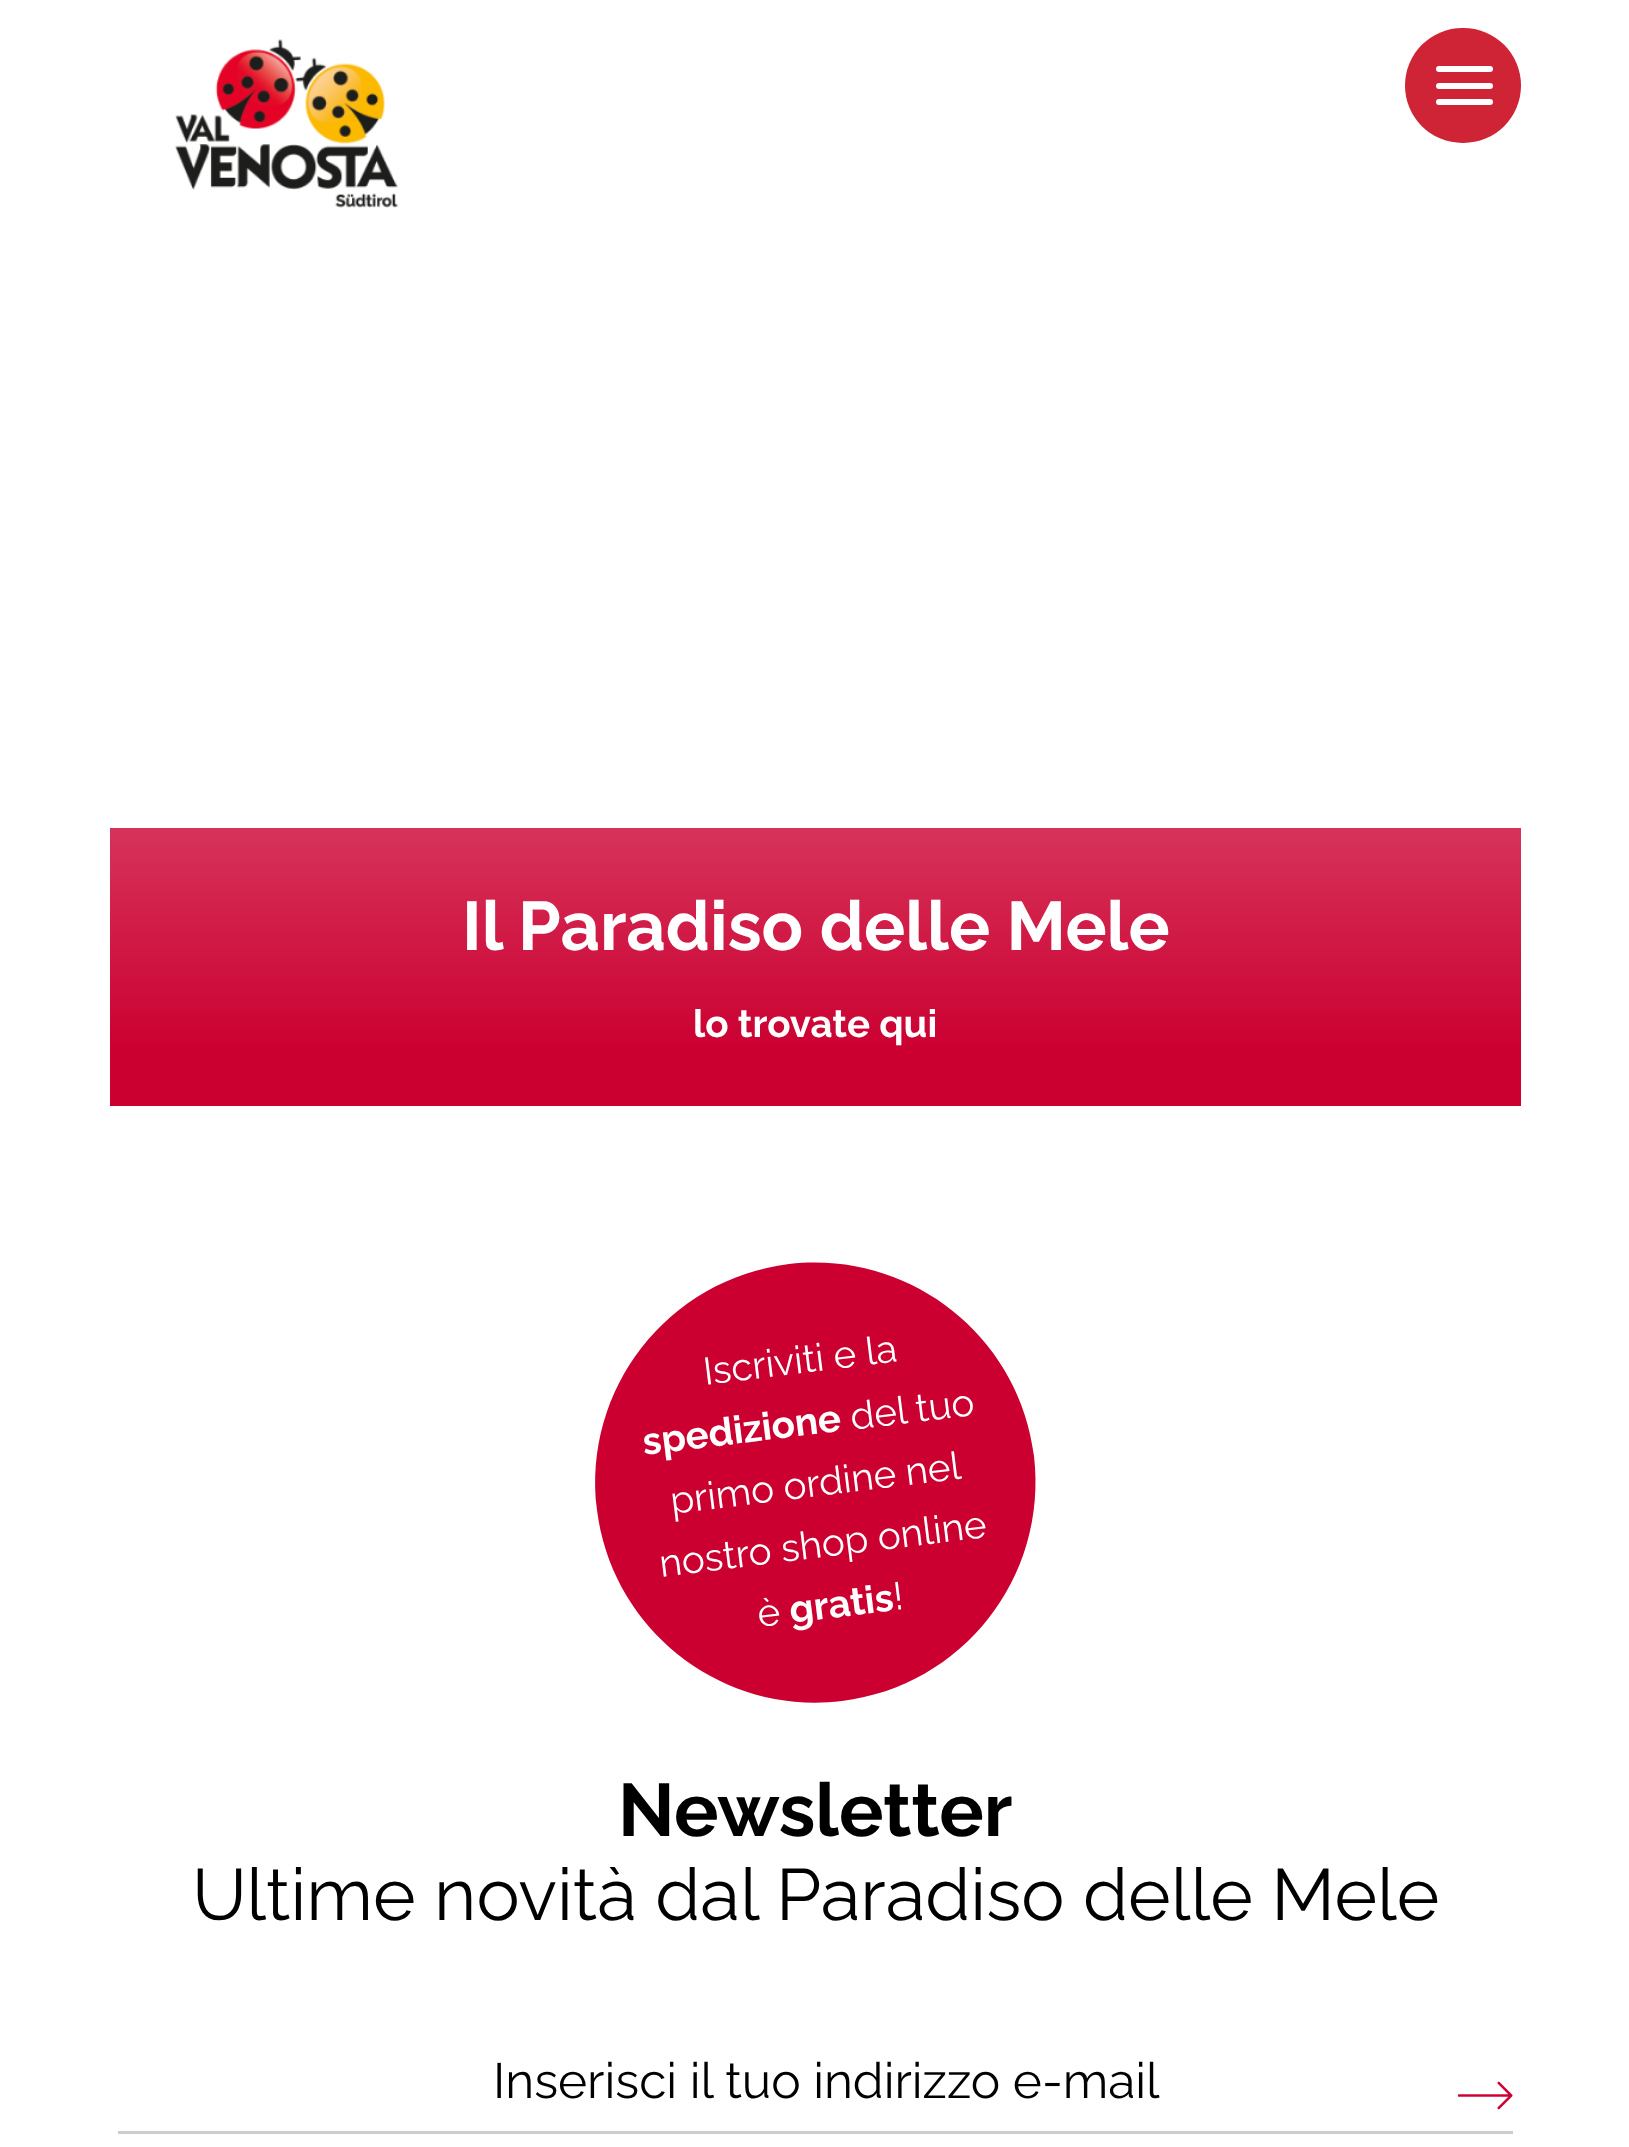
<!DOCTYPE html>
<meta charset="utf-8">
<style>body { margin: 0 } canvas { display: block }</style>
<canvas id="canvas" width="1629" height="2147"></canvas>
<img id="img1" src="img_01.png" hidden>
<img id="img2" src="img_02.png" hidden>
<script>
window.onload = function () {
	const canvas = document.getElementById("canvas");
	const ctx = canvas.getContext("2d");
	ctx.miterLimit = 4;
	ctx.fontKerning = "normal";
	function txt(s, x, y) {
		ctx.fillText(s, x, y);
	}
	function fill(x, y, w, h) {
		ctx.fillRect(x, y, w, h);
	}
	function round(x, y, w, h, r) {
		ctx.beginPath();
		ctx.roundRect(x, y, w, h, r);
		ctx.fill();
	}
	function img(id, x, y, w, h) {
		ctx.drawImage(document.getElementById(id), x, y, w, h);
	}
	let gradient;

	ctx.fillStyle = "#FFFFFF";
	fill(0, 0, 1629, 2147);
	img("img1", 175, 39, 223, 169);
	ctx.fillStyle = "#CF2336";
	round(1405, 28, 116, 115, 57.5);
	ctx.fillStyle = "#FFFFFF";
	round(1436, 66, 57, 6, 3);
	round(1436, 83, 57, 6, 3);
	round(1436, 99, 57, 6, 3);
	gradient = ctx.createLinearGradient(815, 828, 815, 1106);
	gradient.addColorStop(0, "#D6335A");
	gradient.addColorStop(0.8, "#CB0031");
	gradient.addColorStop(1, "#CB0031");
	ctx.fillStyle = gradient;
	fill(110, 828, 1411, 278);
	ctx.fillStyle = "#CB0031";
	ctx.beginPath();
	ctx.moveTo(789, 1264);
	ctx.bezierCurveTo(909, 1250, 1019, 1335, 1034, 1456);
	ctx.bezierCurveTo(1048, 1577, 963, 1686, 842, 1701);
	ctx.bezierCurveTo(722, 1716, 612, 1630, 597, 1510);
	ctx.bezierCurveTo(582, 1389, 668, 1279, 789, 1264);
	ctx.closePath();
	ctx.fill();
	ctx.fillStyle = "#CDCDCD";
	fill(118, 2131, 1395, 3);
	img("img2", 1458, 2081, 55, 29);
	ctx.font = "bold 68.75px Raleway";
	ctx.fillStyle = "#FFFFFF";
	txt("Il Paradiso delle Mele", 462, 950);
	ctx.font = "bold 38.5px Raleway";
	txt("lo trovate qui", 693, 1037);
	ctx.font = "38.5px Raleway";
	ctx.save();
	ctx.translate(705, 1385);
	ctx.rotate(-7 * Math.PI / 180);
	ctx.fillText("Iscriviti e la", 0, 0);
	ctx.restore();
	ctx.font = "bold 38.5px Raleway";
	ctx.save();
	ctx.translate(644, 1455);
	ctx.rotate(-7 * Math.PI / 180);
	ctx.fillText("spedizione", 0, 0);
	ctx.restore();
	ctx.font = "38.5px Raleway";
	ctx.save();
	ctx.translate(852, 1430);
	ctx.rotate(-7 * Math.PI / 180);
	ctx.fillText("del tuo", 0, 0);
	ctx.restore();
	ctx.save();
	ctx.translate(672, 1514);
	ctx.rotate(-7 * Math.PI / 180);
	ctx.fillText("primo ordine nel", 0, 0);
	ctx.restore();
	ctx.save();
	ctx.translate(661, 1577);
	ctx.rotate(-7 * Math.PI / 180);
	ctx.fillText("nostro shop online", 0, 0);
	ctx.restore();
	ctx.save();
	ctx.translate(759, 1627);
	ctx.rotate(-7 * Math.PI / 180);
	ctx.fillText("è", 0, 0);
	ctx.restore();
	ctx.font = "bold 38.5px Raleway";
	ctx.save();
	ctx.translate(791, 1623);
	ctx.rotate(-7 * Math.PI / 180);
	ctx.fillText("gratis", 0, 0);
	ctx.restore();
	ctx.font = "38.5px Raleway";
	ctx.save();
	ctx.translate(895, 1610);
	ctx.rotate(-7 * Math.PI / 180);
	ctx.fillText("!", 0, 0);
	ctx.restore();
	ctx.font = "bold 74.25px Raleway";
	ctx.fillStyle = "#000000";
	txt("Newsletter", 618, 1836);
	ctx.font = "72.6px Raleway";
	txt("Ultime novità dal Paradiso delle Mele", 192, 1920);
	ctx.font = "49.5px Raleway";
	txt("Inserisci il tuo indirizzo e-mail", 493, 2098);
};
</script>
